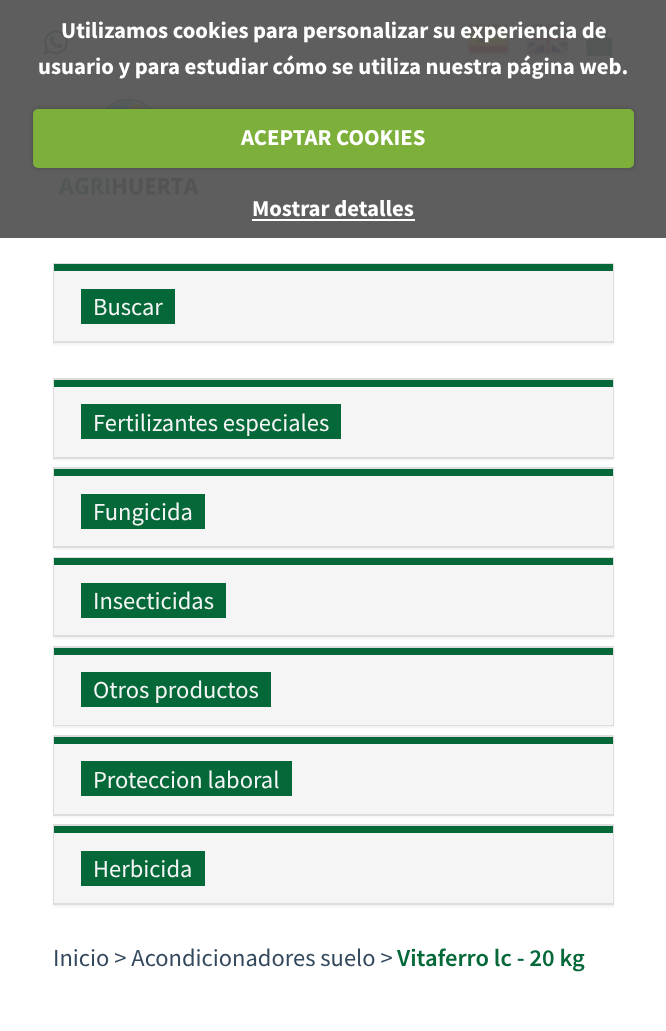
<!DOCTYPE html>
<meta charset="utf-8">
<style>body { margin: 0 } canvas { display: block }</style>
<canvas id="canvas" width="666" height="1031"></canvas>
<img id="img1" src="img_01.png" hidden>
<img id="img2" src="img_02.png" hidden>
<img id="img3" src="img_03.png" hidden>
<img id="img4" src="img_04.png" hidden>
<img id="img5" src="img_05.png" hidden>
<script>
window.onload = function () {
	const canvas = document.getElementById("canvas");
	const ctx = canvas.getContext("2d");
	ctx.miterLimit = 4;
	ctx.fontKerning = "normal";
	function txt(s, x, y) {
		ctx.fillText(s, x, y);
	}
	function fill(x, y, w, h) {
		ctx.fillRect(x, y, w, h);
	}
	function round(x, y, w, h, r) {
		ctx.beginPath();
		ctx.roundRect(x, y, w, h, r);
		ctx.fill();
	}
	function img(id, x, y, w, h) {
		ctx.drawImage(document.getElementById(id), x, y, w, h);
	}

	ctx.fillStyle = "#FFFFFF";
	fill(0, 0, 666, 1031);
	ctx.fillStyle = "#5E5E5E";
	fill(0, 88, 666, 150);
	fill(0, 0, 666, 86);
	ctx.fillStyle = "#5D5D5D";
	fill(0, 86, 666, 2);
	img("img1", 43, 30, 25, 25);
	img("img2", 467, 23, 43, 33);
	img("img3", 526, 23, 43, 33);
	img("img4", 586, 28, 26, 28);
	img("img5", 58, 98, 141, 97);
	ctx.fillStyle = "rgba(0, 0, 0, 0.25)";
	ctx.filter = "blur(2px)";
	ctx.beginPath();
	ctx.roundRect(33, 109, 601, 59, 5);
	ctx.fill();
	ctx.filter = "none";
	ctx.fillStyle = "#7DAF3B";
	round(33, 109, 601, 59, 5);
	ctx.fillStyle = "#FFFFFF";
	fill(252, 219, 163, 2);
	ctx.fillStyle = "rgba(0, 0, 0, 0.05)";
	ctx.filter = "blur(1px)";
	ctx.beginPath();
	ctx.rect(53, 264, 561, 81);
	ctx.fill();
	ctx.filter = "none";
	ctx.strokeStyle = "#DDDDDD";
	ctx.lineWidth = 2;
	ctx.strokeRect(54, 264, 559, 78);
	ctx.fillStyle = "#F5F5F5";
	fill(54, 271, 559, 70);
	ctx.fillStyle = "#056839";
	fill(54, 264, 559, 7);
	fill(81, 289, 94, 35);
	ctx.fillStyle = "rgba(0, 0, 0, 0.05)";
	ctx.filter = "blur(1px)";
	ctx.beginPath();
	ctx.rect(53, 380, 561, 80);
	ctx.fill();
	ctx.filter = "none";
	ctx.strokeRect(54, 379, 559, 79);
	ctx.fillStyle = "#F5F5F5";
	fill(54, 387, 559, 70);
	ctx.fillStyle = "#056839";
	fill(54, 380, 559, 7);
	fill(81, 404, 260, 35);
	ctx.fillStyle = "rgba(0, 0, 0, 0.05)";
	ctx.filter = "blur(1px)";
	ctx.beginPath();
	ctx.rect(53, 469, 561, 81);
	ctx.fill();
	ctx.filter = "none";
	ctx.strokeRect(54, 468, 559, 79);
	ctx.fillStyle = "#F5F5F5";
	fill(54, 476, 559, 70);
	ctx.fillStyle = "#056839";
	fill(54, 469, 559, 7);
	fill(81, 494, 124, 35);
	ctx.fillStyle = "rgba(0, 0, 0, 0.05)";
	ctx.filter = "blur(1px)";
	ctx.beginPath();
	ctx.rect(53, 558, 561, 81);
	ctx.fill();
	ctx.filter = "none";
	ctx.strokeRect(54, 558, 559, 78);
	ctx.fillStyle = "#F5F5F5";
	fill(54, 565, 559, 70);
	ctx.fillStyle = "#056839";
	fill(54, 558, 559, 7);
	fill(81, 583, 145, 35);
	ctx.fillStyle = "rgba(0, 0, 0, 0.05)";
	ctx.filter = "blur(1px)";
	ctx.beginPath();
	ctx.rect(53, 648, 561, 80);
	ctx.fill();
	ctx.filter = "none";
	ctx.strokeRect(54, 647, 559, 78);
	ctx.fillStyle = "#F5F5F5";
	fill(54, 655, 559, 70);
	ctx.fillStyle = "#056839";
	fill(54, 648, 559, 7);
	fill(81, 672, 190, 35);
	ctx.fillStyle = "rgba(0, 0, 0, 0.05)";
	ctx.filter = "blur(1px)";
	ctx.beginPath();
	ctx.rect(53, 737, 561, 80);
	ctx.fill();
	ctx.filter = "none";
	ctx.strokeRect(54, 736, 559, 79);
	ctx.fillStyle = "#F5F5F5";
	fill(54, 744, 559, 70);
	ctx.fillStyle = "#056839";
	fill(54, 737, 559, 7);
	fill(81, 761, 211, 35);
	ctx.fillStyle = "rgba(0, 0, 0, 0.05)";
	ctx.filter = "blur(1px)";
	ctx.beginPath();
	ctx.rect(53, 826, 561, 81);
	ctx.fill();
	ctx.filter = "none";
	ctx.strokeRect(54, 825, 559, 79);
	ctx.fillStyle = "#F5F5F5";
	fill(54, 833, 559, 70);
	ctx.fillStyle = "#056839";
	fill(54, 826, 559, 7);
	fill(81, 851, 124, 35);
	ctx.font = "bold 22.75px Source Sans Pro";
	ctx.fillStyle = "#FFFFFF";
	txt("Utilizamos cookies para personalizar su experiencia de", 61, 38);
	txt("usuario y para estudiar cómo se utiliza nuestra página web.", 38, 74);
	txt("ACEPTAR COOKIES", 241, 145);
	txt("Mostrar detalles", 252, 216);
	ctx.font = "24.5px Source Sans Pro";
	ctx.fillStyle = "#F5F5F5";
	txt("Buscar", 93, 315);
	txt("Fertilizantes especiales", 93, 431);
	txt("Fungicida", 93, 520);
	txt("Insecticidas", 93, 609);
	txt("Otros productos", 93, 698);
	txt("Proteccion laboral", 93, 788);
	txt("Herbicida", 93, 877);
	ctx.fillStyle = "#34495E";
	txt("Inicio > Acondicionadores suelo >", 53, 966);
	ctx.font = "600 24.5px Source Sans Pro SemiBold";
	ctx.fillStyle = "#056839";
	txt("Vitaferro lc - 20 kg", 397, 966);
};
</script>
